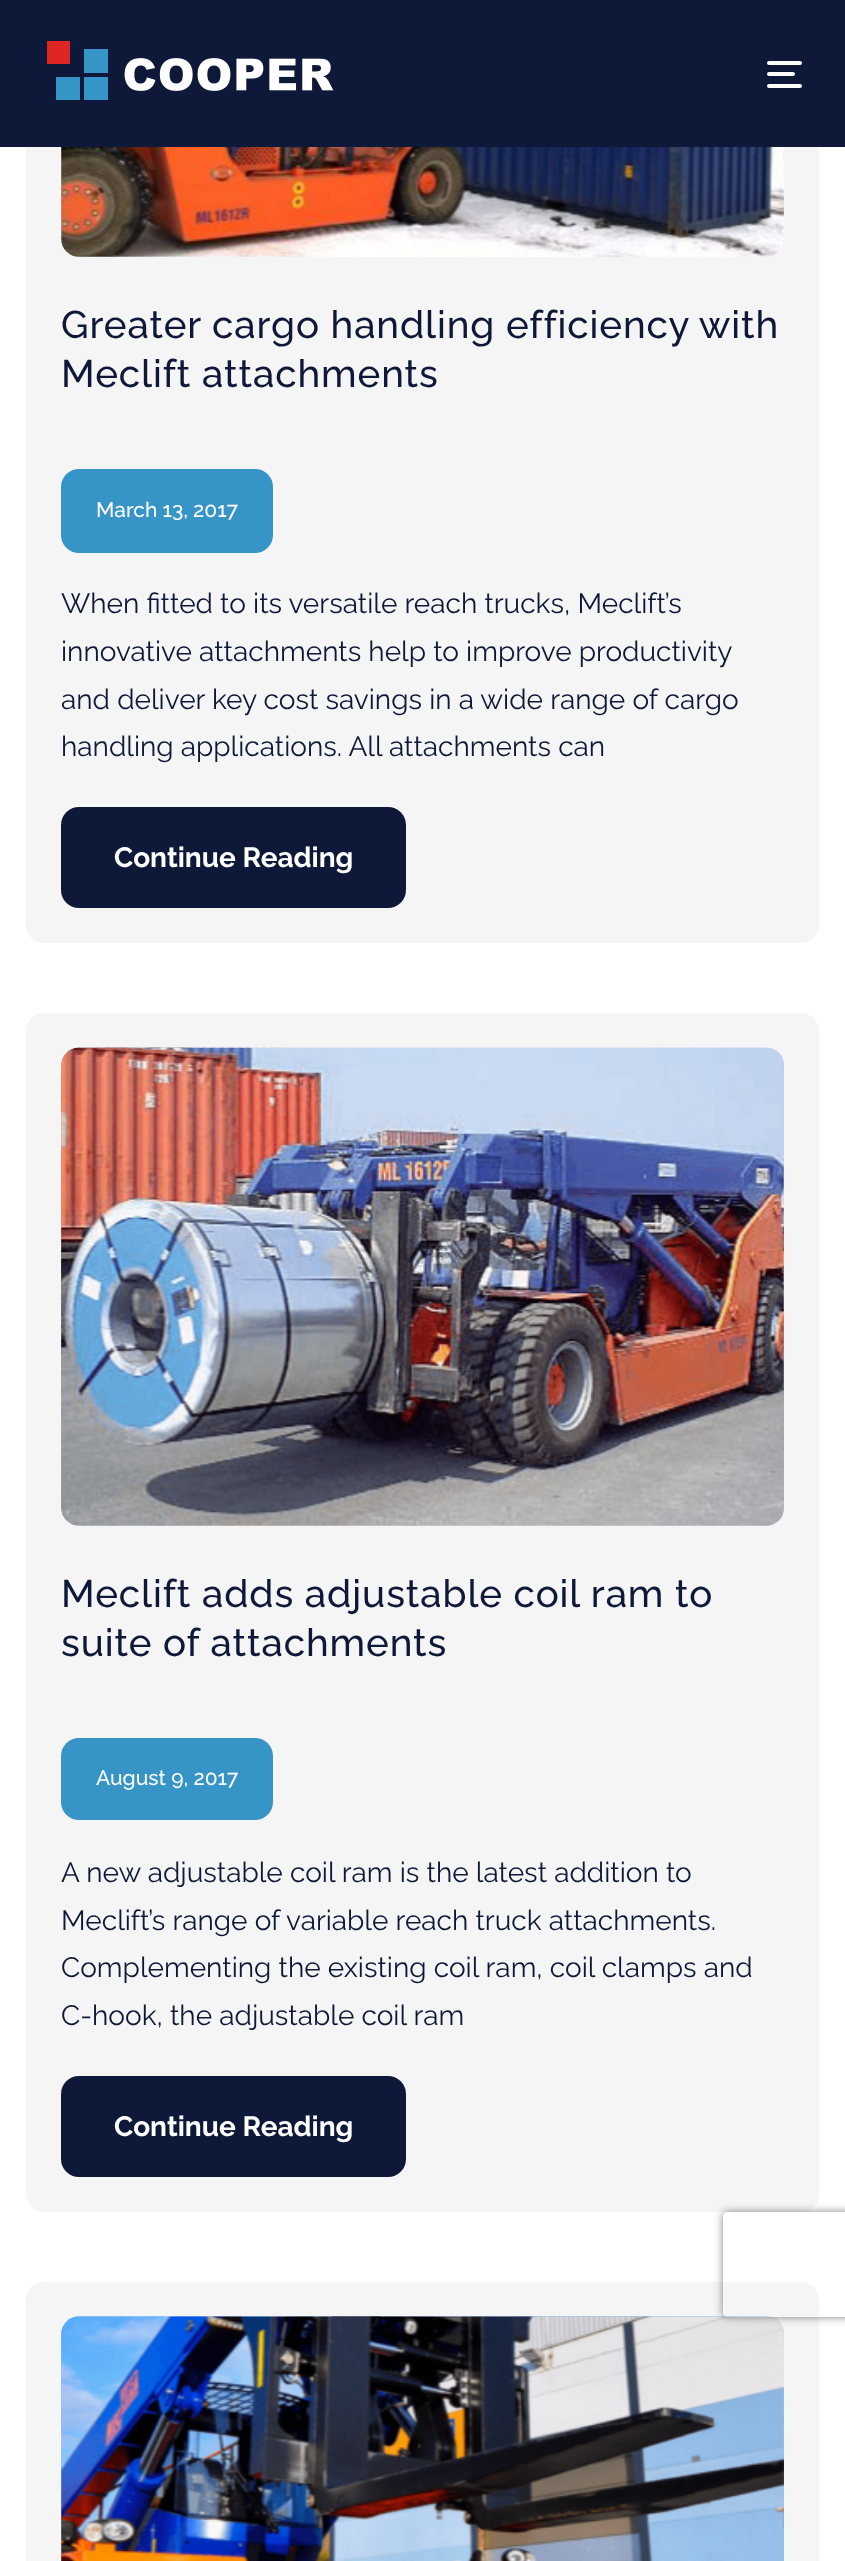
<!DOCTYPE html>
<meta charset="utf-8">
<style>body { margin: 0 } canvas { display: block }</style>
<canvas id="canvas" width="845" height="2561"></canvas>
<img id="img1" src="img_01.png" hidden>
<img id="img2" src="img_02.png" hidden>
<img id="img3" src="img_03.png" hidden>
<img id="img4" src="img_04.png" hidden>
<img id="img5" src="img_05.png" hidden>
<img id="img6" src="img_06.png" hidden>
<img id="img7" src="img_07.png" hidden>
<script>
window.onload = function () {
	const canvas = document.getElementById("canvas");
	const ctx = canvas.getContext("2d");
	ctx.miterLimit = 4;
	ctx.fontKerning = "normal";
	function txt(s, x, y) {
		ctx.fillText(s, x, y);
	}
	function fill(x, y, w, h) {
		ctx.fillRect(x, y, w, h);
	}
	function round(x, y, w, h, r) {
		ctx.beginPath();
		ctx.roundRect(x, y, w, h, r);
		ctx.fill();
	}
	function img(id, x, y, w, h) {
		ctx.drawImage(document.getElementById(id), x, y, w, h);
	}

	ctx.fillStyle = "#FFFFFF";
	fill(0, 0, 845, 2561);
	ctx.fillStyle = "#F5F5F5";
	round(26, -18, 793, 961, 18);
	ctx.fillStyle = "#0E1939";
	fill(0, 0, 845, 147);
	img("img1", 47, 41, 287, 59);
	ctx.fillStyle = "#FFFFFF";
	round(767, 61, 35, 4, 2);
	round(767, 72, 28, 4, 2);
	round(767, 84, 35, 4, 2);
	img("img2", 61, 147, 723, 110);
	img("img3", 61, 147, 723, 110);
	ctx.fillStyle = "#3794C7";
	round(61, 469, 212, 84, 18);
	ctx.fillStyle = "#0E1939";
	round(61, 807, 345, 101, 18);
	ctx.fillStyle = "#F5F5F5";
	round(26, 1013, 793, 1199, 18);
	img("img4", 61, 1047, 723, 479);
	img("img5", 61, 1047, 723, 479);
	ctx.fillStyle = "#3794C7";
	round(61, 1738, 212, 82, 18);
	ctx.fillStyle = "#0E1939";
	round(61, 2076, 345, 101, 18);
	ctx.fillStyle = "#F5F5F5";
	round(26, 2282, 793, 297, 18);
	img("img6", 61, 2316, 723, 245);
	img("img7", 61, 2316, 723, 245);
	ctx.save();
	ctx.beginPath();
	ctx.moveTo(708, 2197);
	ctx.lineTo(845, 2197);
	ctx.lineTo(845, 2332);
	ctx.lineTo(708, 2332);
	ctx.closePath();
	ctx.moveTo(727, 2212);
	ctx.lineTo(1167, 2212);
	ctx.bezierCurveTo(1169, 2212, 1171, 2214, 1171, 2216);
	ctx.lineTo(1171, 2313);
	ctx.bezierCurveTo(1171, 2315, 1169, 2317, 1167, 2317);
	ctx.lineTo(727, 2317);
	ctx.bezierCurveTo(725, 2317, 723, 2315, 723, 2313);
	ctx.lineTo(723, 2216);
	ctx.bezierCurveTo(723, 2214, 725, 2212, 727, 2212);
	ctx.closePath();
	ctx.clip("evenodd");
	ctx.fillStyle = "#808080";
	ctx.filter = "blur(4.5px)";
	ctx.beginPath();
	ctx.roundRect(723, 2212, 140, 105, 4);
	ctx.fill();
	ctx.filter = "none";
	ctx.restore();
	ctx.letterSpacing = "0.9px";
	ctx.font = "500 38.5px Raleway";
	ctx.fillStyle = "#0E1939";
	txt("Greater cargo handling efficiency with", 61, 338);
	txt("Meclift attachments", 61, 387);
	ctx.letterSpacing = "0px";
	ctx.font = "500 21px Raleway";
	ctx.fillStyle = "#FFFFFF";
	txt("March 13, 2017", 96, 517);
	ctx.font = "28px Raleway";
	ctx.fillStyle = "#0E1939";
	txt("When fitted to its versatile reach trucks, Meclift’s", 61, 613);
	txt("innovative attachments help to improve productivity", 61, 661);
	txt("and deliver key cost savings in a wide range of cargo", 61, 709);
	txt("handling applications. All attachments can", 61, 756);
	ctx.font = "bold 28px Raleway";
	ctx.fillStyle = "#FFFFFF";
	txt("Continue Reading", 114, 867);
	ctx.letterSpacing = "0.9px";
	ctx.font = "500 38.5px Raleway";
	ctx.fillStyle = "#0E1939";
	txt("Meclift adds adjustable coil ram to", 61, 1607);
	txt("suite of attachments", 61, 1656);
	ctx.letterSpacing = "0px";
	ctx.font = "500 21px Raleway";
	ctx.fillStyle = "#FFFFFF";
	txt("August 9, 2017", 96, 1785);
	ctx.font = "28px Raleway";
	ctx.fillStyle = "#0E1939";
	txt("A new adjustable coil ram is the latest addition to", 61, 1882);
	txt("Meclift’s range of variable reach truck attachments.", 61, 1930);
	txt("Complementing the existing coil ram, coil clamps and", 61, 1977);
	txt("C-hook, the adjustable coil ram", 61, 2025);
	ctx.font = "bold 28px Raleway";
	ctx.fillStyle = "#FFFFFF";
	txt("Continue Reading", 114, 2136);
};
</script>
